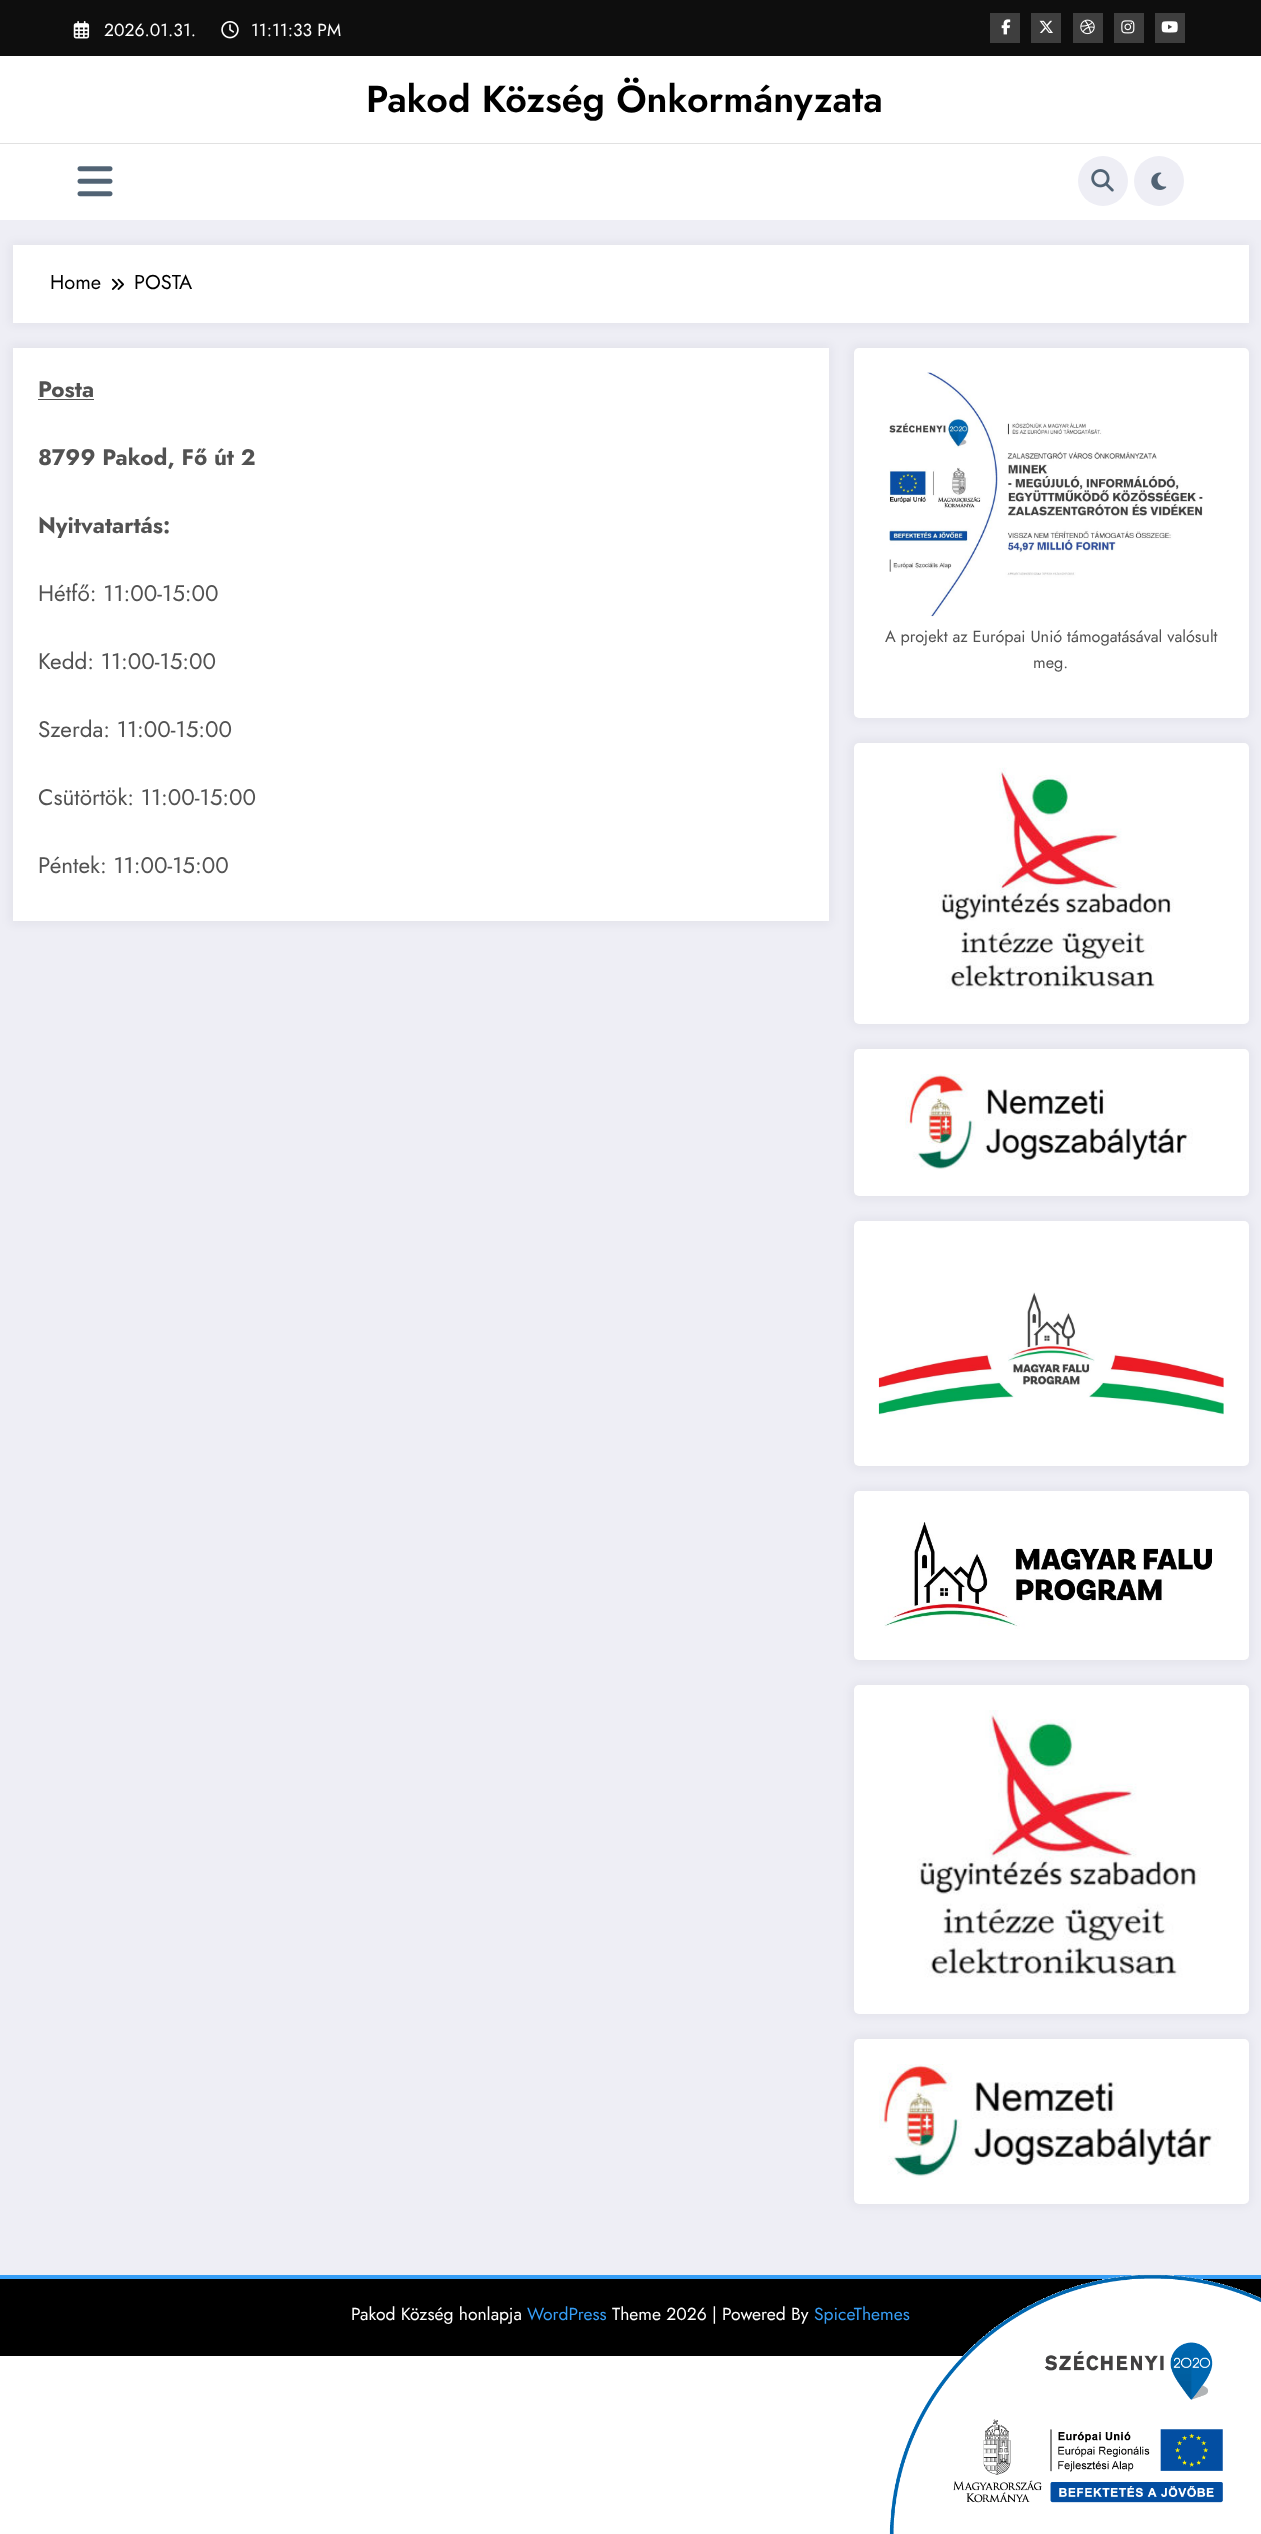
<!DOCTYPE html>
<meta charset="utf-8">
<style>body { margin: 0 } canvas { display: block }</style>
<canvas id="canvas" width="1261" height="2534"></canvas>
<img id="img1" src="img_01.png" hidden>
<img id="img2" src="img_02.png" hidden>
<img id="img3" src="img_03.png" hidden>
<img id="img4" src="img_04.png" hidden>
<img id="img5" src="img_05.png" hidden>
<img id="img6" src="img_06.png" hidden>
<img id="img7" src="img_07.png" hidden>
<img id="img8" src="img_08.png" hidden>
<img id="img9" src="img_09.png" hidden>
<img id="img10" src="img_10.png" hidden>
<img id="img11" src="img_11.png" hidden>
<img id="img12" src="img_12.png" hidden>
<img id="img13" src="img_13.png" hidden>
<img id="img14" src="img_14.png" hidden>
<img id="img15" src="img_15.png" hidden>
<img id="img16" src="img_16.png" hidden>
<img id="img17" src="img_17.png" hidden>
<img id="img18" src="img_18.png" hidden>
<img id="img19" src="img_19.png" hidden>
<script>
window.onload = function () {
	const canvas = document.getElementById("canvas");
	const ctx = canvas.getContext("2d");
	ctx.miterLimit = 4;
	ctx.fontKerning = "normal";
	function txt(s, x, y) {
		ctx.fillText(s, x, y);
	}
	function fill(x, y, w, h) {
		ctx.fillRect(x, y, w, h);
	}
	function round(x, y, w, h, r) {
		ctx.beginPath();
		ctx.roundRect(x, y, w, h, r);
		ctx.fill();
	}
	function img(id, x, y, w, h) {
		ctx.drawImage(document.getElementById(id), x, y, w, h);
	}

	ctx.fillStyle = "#FFFFFF";
	fill(0, 0, 1261, 2534);
	ctx.fillStyle = "#EEEEF5";
	fill(0, 220, 1261, 2055);
	ctx.fillStyle = "#0E0E0E";
	fill(0, 0, 1261, 56);
	img("img1", 73, 21, 17, 18);
	img("img2", 221, 21, 18, 18);
	ctx.fillStyle = "#3E3E3E";
	fill(990, 13, 30, 30);
	img("img3", 1001, 19, 10, 16);
	fill(1031, 13, 30, 30);
	img("img4", 1039, 20, 14, 13);
	fill(1073, 13, 30, 30);
	img("img5", 1080, 19, 15, 16);
	fill(1114, 13, 30, 30);
	img("img6", 1121, 20, 14, 14);
	fill(1155, 13, 30, 30);
	img("img7", 1161, 21, 17, 12);
	ctx.fillStyle = "#E1E1E1";
	fill(0, 143, 1261, 1);
	img("img8", 77, 166, 36, 31);
	ctx.fillStyle = "#EEEEF5";
	ctx.beginPath();
	ctx.arc(1103, 181, 25, 0, Math.PI * 2);
	ctx.fill();
	img("img9", 1091, 169, 23, 23);
	ctx.beginPath();
	ctx.arc(1159, 181, 25, 0, Math.PI * 2);
	ctx.fill();
	img("img10", 1151, 172, 16, 18);
	ctx.fillStyle = "rgba(23, 23, 35, 0.05)";
	ctx.filter = "blur(5px)";
	ctx.beginPath();
	ctx.rect(10, 243, 1241, 82);
	ctx.fill();
	ctx.filter = "none";
	ctx.fillStyle = "#FFFFFF";
	fill(13, 245, 1236, 78);
	img("img11", 111, 278, 13, 12);
	ctx.fillStyle = "rgba(23, 23, 35, 0.05)";
	ctx.filter = "blur(5px)";
	ctx.beginPath();
	ctx.rect(10, 345, 821, 579);
	ctx.fill();
	ctx.filter = "none";
	ctx.fillStyle = "#FFFFFF";
	fill(13, 348, 816, 573);
	ctx.fillStyle = "#525252";
	fill(38, 399, 56, 1);
	ctx.fillStyle = "rgba(23, 23, 35, 0.05)";
	ctx.filter = "blur(5px)";
	ctx.beginPath();
	ctx.roundRect(851, 345, 400, 375, 8);
	ctx.fill();
	ctx.filter = "none";
	ctx.fillStyle = "#FFFFFF";
	round(854, 348, 395, 370, 5);
	img("img12", 889, 372, 314, 245);
	ctx.fillStyle = "rgba(23, 23, 35, 0.05)";
	ctx.filter = "blur(5px)";
	ctx.beginPath();
	ctx.roundRect(851, 740, 400, 286, 8);
	ctx.fill();
	ctx.filter = "none";
	ctx.fillStyle = "#FFFFFF";
	round(854, 743, 395, 281, 5);
	img("img13", 938, 767, 236, 222);
	ctx.fillStyle = "rgba(23, 23, 35, 0.05)";
	ctx.filter = "blur(5px)";
	ctx.beginPath();
	ctx.roundRect(851, 1046, 400, 153, 8);
	ctx.fill();
	ctx.filter = "none";
	ctx.fillStyle = "#FFFFFF";
	round(854, 1049, 395, 147, 5);
	img("img14", 905, 1074, 288, 96);
	ctx.fillStyle = "rgba(23, 23, 35, 0.05)";
	ctx.filter = "blur(5px)";
	ctx.beginPath();
	ctx.roundRect(851, 1219, 400, 250, 8);
	ctx.fill();
	ctx.filter = "none";
	ctx.fillStyle = "#FFFFFF";
	round(854, 1221, 395, 245, 5);
	img("img15", 878, 1292, 346, 123);
	ctx.fillStyle = "rgba(23, 23, 35, 0.05)";
	ctx.filter = "blur(5px)";
	ctx.beginPath();
	ctx.roundRect(851, 1489, 400, 174, 8);
	ctx.fill();
	ctx.filter = "none";
	ctx.fillStyle = "#FFFFFF";
	round(854, 1491, 395, 169, 5);
	img("img16", 884, 1522, 328, 107);
	ctx.fillStyle = "rgba(23, 23, 35, 0.05)";
	ctx.filter = "blur(5px)";
	ctx.beginPath();
	ctx.roundRect(851, 1683, 400, 333, 8);
	ctx.fill();
	ctx.filter = "none";
	ctx.fillStyle = "#FFFFFF";
	round(854, 1685, 395, 329, 5);
	img("img17", 917, 1710, 284, 268);
	ctx.fillStyle = "rgba(23, 23, 35, 0.05)";
	ctx.filter = "blur(5px)";
	ctx.beginPath();
	ctx.roundRect(851, 2036, 400, 170, 8);
	ctx.fill();
	ctx.filter = "none";
	ctx.fillStyle = "#FFFFFF";
	round(854, 2039, 395, 165, 5);
	img("img18", 879, 2064, 340, 114);
	ctx.fillStyle = "#369EF6";
	fill(0, 2275, 1261, 4);
	ctx.fillStyle = "#000000";
	fill(0, 2279, 1261, 77);
	ctx.font = "17.5px Jost";
	ctx.fillStyle = "#FFFFFF";
	txt("2026.01.31.", 104, 36);
	txt("11:11:33 PM", 251, 36);
	ctx.font = "600 37.5px Jost";
	ctx.fillStyle = "#000000";
	txt("Pakod Község Önkormányzata", 366, 112);
	ctx.font = "20px Jost";
	txt("Home", 50, 289);
	txt("POSTA", 134, 289);
	ctx.font = "bold 22.5px Jost";
	ctx.fillStyle = "#525252";
	txt("Posta", 38, 397);
	txt("8799 Pakod, Fő út 2", 38, 465);
	txt("Nyitvatartás:", 38, 533);
	ctx.font = "22.5px Jost";
	txt("Hétfő: 11:00-15:00", 38, 601);
	txt("Kedd: 11:00-15:00", 38, 669);
	txt("Szerda: 11:00-15:00", 38, 737);
	txt("Csütörtök: 11:00-15:00", 38, 805);
	txt("Péntek: 11:00-15:00", 38, 873);
	ctx.font = "16.25px Jost";
	txt("A projekt az Európai Unió támogatásával valósult", 885, 642);
	txt("meg.", 1033, 668);
	ctx.font = "17.5px Jost";
	ctx.fillStyle = "#FFFFFF";
	txt("Pakod Község honlapja", 351, 2320);
	ctx.fillStyle = "#369EF6";
	txt("WordPress", 527, 2320);
	ctx.fillStyle = "#FFFFFF";
	txt("Theme 2026 | Powered By", 612, 2320);
	ctx.fillStyle = "#369EF6";
	txt("SpiceThemes", 814, 2320);
	img("img19", 889, 2274, 372, 260);
};
</script>
